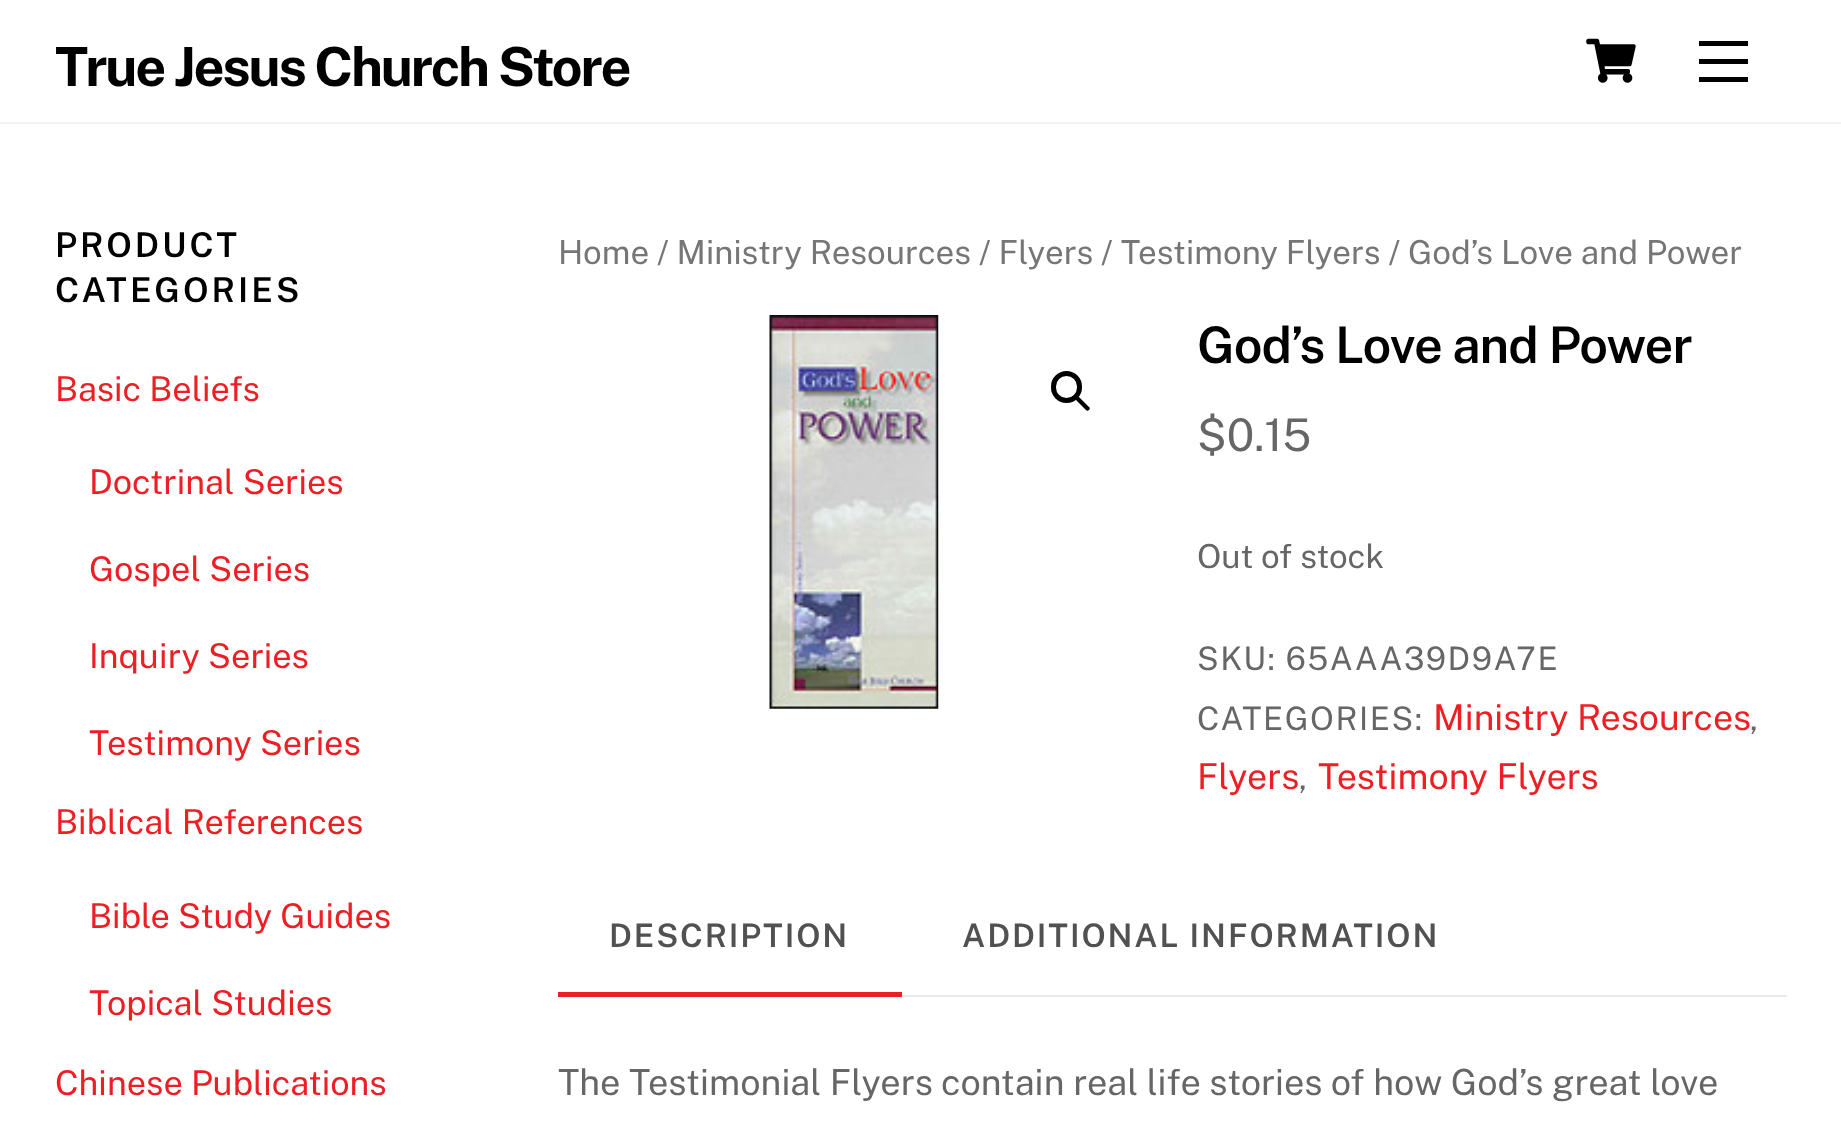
<!DOCTYPE html>
<meta charset="utf-8">
<style>body { margin: 0 } canvas { display: block }</style>
<canvas id="canvas" width="1841" height="1143"></canvas>
<img id="img1" src="img_01.png" hidden>
<img id="img2" src="img_02.png" hidden>
<script>
window.onload = function () {
	const canvas = document.getElementById("canvas");
	const ctx = canvas.getContext("2d");
	ctx.miterLimit = 4;
	ctx.fontKerning = "normal";
	function txt(s, x, y) {
		ctx.fillText(s, x, y);
	}
	function fill(x, y, w, h) {
		ctx.fillRect(x, y, w, h);
	}
	function img(id, x, y, w, h) {
		ctx.drawImage(document.getElementById(id), x, y, w, h);
	}

	ctx.fillStyle = "#FFFFFF";
	fill(0, 0, 1841, 1143);
	ctx.fillStyle = "#F2F2F2";
	fill(0, 122, 1841, 2);
	img("img1", 1586, 38, 50, 45);
	ctx.fillStyle = "#000000";
	fill(1699, 77, 49, 5);
	fill(1699, 41, 49, 5);
	fill(1699, 59, 49, 5);
	img("img2", 769, 315, 170, 394);
	ctx.beginPath();
	ctx.roundRect(1053.5, 373.5, 26, 27, 13);
	ctx.strokeStyle = "#000000";
	ctx.lineWidth = 5;
	ctx.stroke();
	ctx.beginPath();
	ctx.moveTo(1076.5, 397.5);
	ctx.bezierCurveTo(1077, 396.5, 1078.5, 396.5, 1079.5, 397.5);
	ctx.lineTo(1089, 407);
	ctx.bezierCurveTo(1090, 407.5, 1090, 409, 1089, 410);
	ctx.bezierCurveTo(1088, 411, 1086.5, 411, 1086, 410);
	ctx.lineTo(1076.5, 400.5);
	ctx.bezierCurveTo(1075.5, 399.5, 1075.5, 398, 1076.5, 397.5);
	ctx.closePath();
	ctx.fill();
	ctx.fillStyle = "#ED1E24";
	fill(558, 992, 344, 5);
	ctx.fillStyle = "#E9E9E9";
	fill(902, 995, 885, 2);
	ctx.letterSpacing = "-2.2px";
	ctx.font = "bold 54px Public Sans";
	ctx.fillStyle = "#000000";
	txt("True Jesus Church Store", 55, 86);
	ctx.letterSpacing = "3px";
	ctx.font = "600 34.25px Public Sans";
	txt("PRODUCT", 55, 257);
	txt("CATEGORIES", 55, 302);
	ctx.letterSpacing = "0px";
	ctx.font = "34.25px Public Sans";
	ctx.fillStyle = "#ED1E24";
	txt("Basic Beliefs", 55, 401);
	txt("Doctrinal Series", 89, 494);
	txt("Gospel Series", 89, 581);
	txt("Inquiry Series", 89, 668);
	txt("Testimony Series", 89, 755);
	txt("Biblical References", 55, 834);
	txt("Bible Study Guides", 89, 928);
	txt("Topical Studies", 89, 1015);
	txt("Chinese Publications", 55, 1095);
	ctx.font = "33.1px Public Sans";
	ctx.fillStyle = "#767676";
	txt("Home / Ministry Resources / Flyers / Testimony Flyers / God’s Love and Power", 558, 264);
	ctx.letterSpacing = "-1px";
	ctx.font = "600 50.5px Public Sans";
	ctx.fillStyle = "#000000";
	txt("God’s Love and Power", 1197, 363);
	ctx.letterSpacing = "0px";
	ctx.font = "45px Public Sans";
	ctx.fillStyle = "#666666";
	txt("$0.15", 1197, 451);
	ctx.font = "33.1px Public Sans";
	txt("Out of stock", 1197, 568);
	ctx.letterSpacing = "1.6px";
	ctx.font = "32.4px Public Sans";
	txt("SKU: 65AAA39D9A7E", 1197, 670);
	txt("CATEGORIES:", 1197, 730);
	ctx.letterSpacing = "0px";
	ctx.font = "35.75px Public Sans";
	ctx.fillStyle = "#ED1E24";
	txt("Ministry Resources", 1433, 730);
	ctx.letterSpacing = "1.6px";
	ctx.font = "32.4px Public Sans";
	ctx.fillStyle = "#666666";
	txt(",", 1750, 730);
	ctx.letterSpacing = "0px";
	ctx.font = "35.75px Public Sans";
	ctx.fillStyle = "#ED1E24";
	txt("Flyers", 1197, 789);
	ctx.letterSpacing = "1.6px";
	ctx.font = "32.4px Public Sans";
	ctx.fillStyle = "#666666";
	txt(",", 1299, 789);
	ctx.letterSpacing = "0px";
	ctx.font = "35.75px Public Sans";
	ctx.fillStyle = "#ED1E24";
	txt("Testimony Flyers", 1318, 789);
	ctx.letterSpacing = "1.9px";
	ctx.font = "600 32.4px Public Sans";
	ctx.fillStyle = "#515151";
	txt("DESCRIPTION", 609, 947);
	txt("ADDITIONAL INFORMATION", 962, 947);
	ctx.letterSpacing = "0px";
	ctx.font = "36px Public Sans";
	ctx.fillStyle = "#666666";
	txt("The Testimonial Flyers contain real life stories of how God’s great love", 558, 1095);
};
</script>
